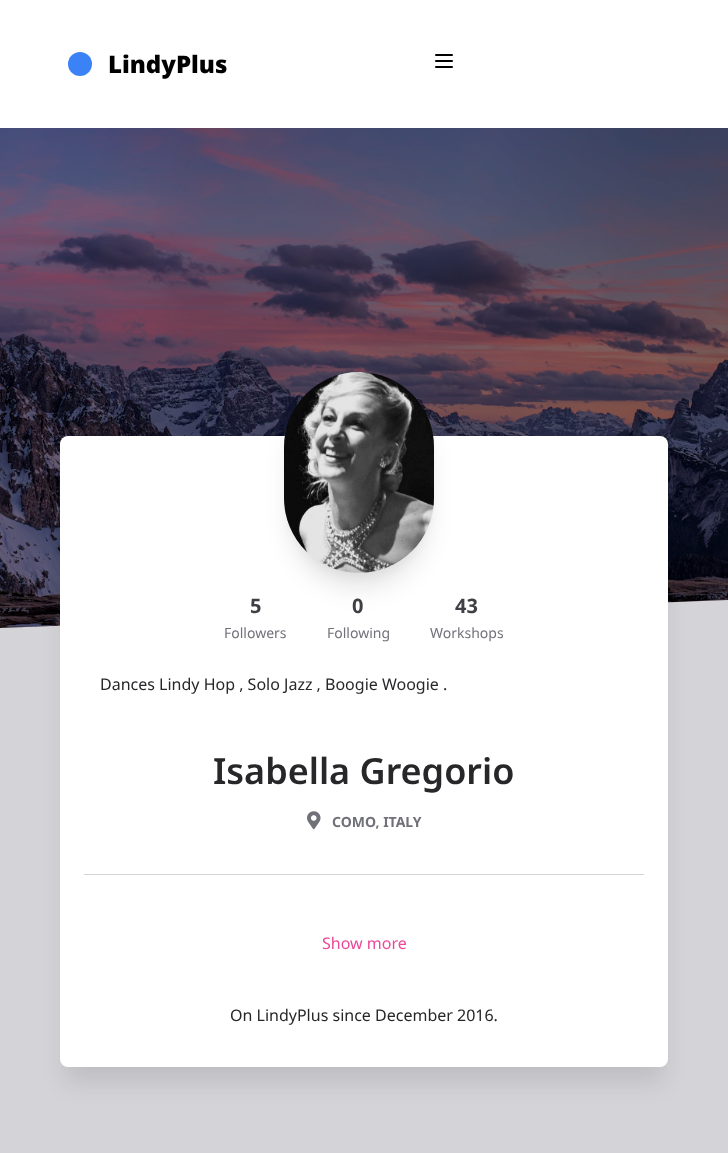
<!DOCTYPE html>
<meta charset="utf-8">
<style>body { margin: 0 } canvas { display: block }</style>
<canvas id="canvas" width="728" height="1153"></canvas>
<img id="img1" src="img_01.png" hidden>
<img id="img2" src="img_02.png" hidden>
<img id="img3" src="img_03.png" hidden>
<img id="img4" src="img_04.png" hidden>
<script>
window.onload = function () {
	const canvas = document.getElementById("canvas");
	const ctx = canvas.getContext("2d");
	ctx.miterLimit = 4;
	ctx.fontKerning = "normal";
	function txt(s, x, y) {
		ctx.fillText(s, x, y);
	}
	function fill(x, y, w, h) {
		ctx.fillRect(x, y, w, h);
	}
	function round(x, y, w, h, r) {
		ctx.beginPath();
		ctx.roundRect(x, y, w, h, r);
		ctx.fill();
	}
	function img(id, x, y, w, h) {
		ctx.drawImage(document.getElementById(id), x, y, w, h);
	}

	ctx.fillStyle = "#FFFFFF";
	fill(0, 0, 728, 1153);
	ctx.fillStyle = "#3B82F6";
	ctx.beginPath();
	ctx.arc(80, 64, 12, 0, Math.PI * 2);
	ctx.fill();
	img("img1", 435, 54, 18, 14);
	img("img2", 0, 128, 728, 500);
	ctx.fillStyle = "#D4D4D8";
	ctx.beginPath();
	ctx.moveTo(728, 600);
	ctx.lineTo(728, 628);
	ctx.lineTo(0, 628);
	ctx.closePath();
	ctx.fill();
	fill(0, 628, 728, 525);
	ctx.fillStyle = "rgba(0, 0, 0, 0.1)";
	ctx.filter = "blur(12.5px)";
	ctx.beginPath();
	ctx.roundRect(65, 461, 598, 621, 3);
	ctx.fill();
	ctx.filter = "none";
	ctx.fillStyle = "#FFFFFF";
	round(60, 436, 608, 631, 8);
	ctx.fillStyle = "rgba(0, 0, 0, 0.04)";
	ctx.filter = "blur(5px)";
	ctx.beginPath();
	ctx.roundRect(289, 387, 140, 191, 70);
	ctx.fill();
	ctx.filter = "none";
	ctx.fillStyle = "rgba(0, 0, 0, 0.1)";
	ctx.filter = "blur(12.5px)";
	ctx.beginPath();
	ctx.roundRect(289, 397, 140, 191, 70);
	ctx.fill();
	ctx.filter = "none";
	img("img3", 284, 372, 150, 201);
	img("img4", 307, 811, 14, 19);
	ctx.fillStyle = "#D4D4D8";
	fill(84, 874, 560, 1);
	ctx.font = "900 24px Noto Sans";
	ctx.fillStyle = "#000000";
	txt("LindyPlus", 108, 73);
	ctx.font = "bold 20px Noto Sans";
	ctx.fillStyle = "#3F3F46";
	txt("5", 250, 613);
	ctx.font = "14px Noto Sans";
	ctx.fillStyle = "#71717A";
	txt("Followers", 224, 638);
	ctx.font = "bold 20px Noto Sans";
	ctx.fillStyle = "#3F3F46";
	txt("0", 352, 613);
	ctx.font = "14px Noto Sans";
	ctx.fillStyle = "#71717A";
	txt("Following", 327, 638);
	ctx.font = "bold 20px Noto Sans";
	ctx.fillStyle = "#3F3F46";
	txt("43", 455, 613);
	ctx.font = "14px Noto Sans";
	ctx.fillStyle = "#71717A";
	txt("Workshops", 430, 638);
	ctx.font = "16px Noto Sans";
	ctx.fillStyle = "#27272A";
	txt("Dances Lindy Hop , Solo Jazz , Boogie Woogie .", 100, 690);
	ctx.font = "600 36px Noto Sans";
	txt("Isabella Gregorio", 213, 784);
	ctx.font = "bold 14px Noto Sans";
	ctx.fillStyle = "#71717A";
	txt("COMO, ITALY", 332, 827);
	ctx.font = "16px Noto Sans";
	ctx.fillStyle = "#EC4899";
	txt("Show more", 322, 949);
	ctx.fillStyle = "#27272A";
	txt("On LindyPlus since December 2016.", 230, 1021);
};
</script>
